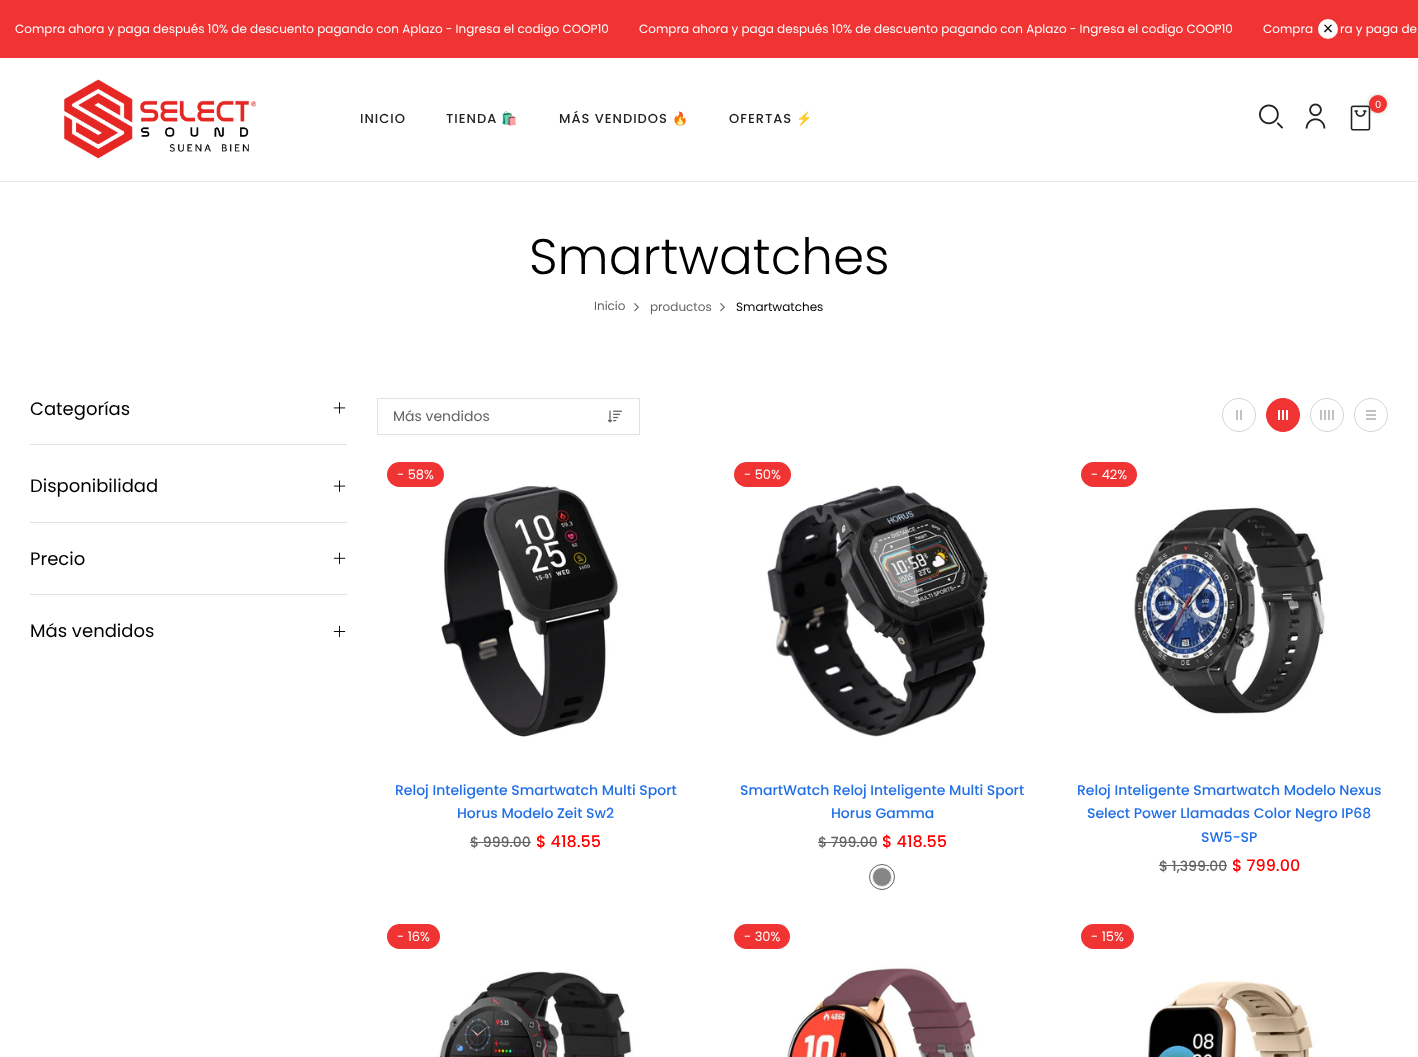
<!DOCTYPE html>
<meta charset="utf-8">
<style>body { margin: 0 } canvas { display: block }</style>
<canvas id="canvas" width="1418" height="1057"></canvas>
<img id="img1" src="img_01.png" hidden>
<img id="img2" src="img_02.png" hidden>
<img id="img3" src="img_03.png" hidden>
<img id="img4" src="img_04.png" hidden>
<img id="img5" src="img_05.png" hidden>
<img id="img6" src="img_06.png" hidden>
<img id="img7" src="img_07.png" hidden>
<img id="img8" src="img_08.png" hidden>
<img id="img9" src="img_09.png" hidden>
<img id="img10" src="img_10.png" hidden>
<img id="img11" src="img_11.png" hidden>
<img id="img12" src="img_12.png" hidden>
<img id="img13" src="img_13.png" hidden>
<img id="img14" src="img_14.png" hidden>
<img id="img15" src="img_15.png" hidden>
<img id="img16" src="img_16.png" hidden>
<script>
window.onload = function () {
	const canvas = document.getElementById("canvas");
	const ctx = canvas.getContext("2d");
	ctx.miterLimit = 4;
	ctx.fontKerning = "normal";
	function txt(s, x, y) {
		ctx.fillText(s, x, y);
	}
	function fill(x, y, w, h) {
		ctx.fillRect(x, y, w, h);
	}
	function round(x, y, w, h, r) {
		ctx.beginPath();
		ctx.roundRect(x, y, w, h, r);
		ctx.fill();
	}
	function img(id, x, y, w, h) {
		ctx.drawImage(document.getElementById(id), x, y, w, h);
	}

	ctx.fillStyle = "#FFFFFF";
	fill(0, 0, 1418, 1057);
	ctx.fillStyle = "#F03333";
	fill(0, 0, 1418, 58);
	ctx.fillStyle = "#FFFFFF";
	ctx.beginPath();
	ctx.arc(1328, 29, 10, 0, Math.PI * 2);
	ctx.fill();
	ctx.fillStyle = "#000000";
	ctx.beginPath();
	ctx.moveTo(1324, 31.5);
	ctx.lineTo(1331, 24.5);
	ctx.lineTo(1332, 25);
	ctx.lineTo(1325, 32.5);
	ctx.closePath();
	ctx.fill();
	ctx.beginPath();
	ctx.moveTo(1325, 24.5);
	ctx.lineTo(1332, 31.5);
	ctx.lineTo(1331, 32.5);
	ctx.lineTo(1324, 25);
	ctx.closePath();
	ctx.fill();
	ctx.fillStyle = "#E9E9E9";
	fill(0, 181, 1418, 1);
	img("img1", 64, 79, 193, 80);
	img("img2", 1259, 104, 24, 25);
	img("img3", 1305, 103, 21, 26);
	img("img4", 1350, 105, 21, 26);
	ctx.fillStyle = "rgba(0, 0, 0, 0.2)";
	ctx.filter = "blur(2.5px)";
	ctx.beginPath();
	ctx.roundRect(1369, 95, 18, 18, 9);
	ctx.fill();
	ctx.filter = "none";
	ctx.fillStyle = "#F03333";
	ctx.beginPath();
	ctx.arc(1378, 104, 9, 0, Math.PI * 2);
	ctx.fill();
	img("img5", 634, 303, 5, 9);
	img("img5", 720, 303, 5, 9);
	ctx.fillStyle = "#E1E1E1";
	fill(30, 444, 317, 1);
	img("img6", 333, 402, 13, 12);
	fill(30, 522, 317, 1);
	img("img7", 333, 480, 13, 12);
	fill(30, 594, 317, 1);
	img("img8", 333, 552, 13, 12);
	img("img9", 333, 625, 13, 13);
	ctx.strokeStyle = "#E1E1E1";
	ctx.strokeRect(377.5, 398.5, 262, 36);
	img("img10", 607, 410, 15, 13);
	ctx.beginPath();
	ctx.arc(1239, 415, 16.5, 0, Math.PI * 2);
	ctx.strokeStyle = "#D6D6D6";
	ctx.stroke();
	ctx.fillStyle = "#C2C2C2";
	fill(1236, 410, 2, 10);
	fill(1240, 410, 2, 10);
	ctx.fillStyle = "#F03333";
	ctx.beginPath();
	ctx.arc(1283, 415, 16.5, 0, Math.PI * 2);
	ctx.fill();
	ctx.strokeStyle = "#F03333";
	ctx.stroke();
	ctx.fillStyle = "#FFFFFF";
	fill(1278, 410, 2, 10);
	fill(1282, 410, 2, 10);
	fill(1286, 410, 2, 10);
	ctx.beginPath();
	ctx.arc(1327, 415, 16.5, 0, Math.PI * 2);
	ctx.strokeStyle = "#D6D6D6";
	ctx.stroke();
	ctx.fillStyle = "#C2C2C2";
	fill(1320, 410, 2, 10);
	fill(1324, 410, 2, 10);
	fill(1328, 410, 2, 10);
	fill(1332, 410, 2, 10);
	ctx.beginPath();
	ctx.arc(1371, 415, 16.5, 0, Math.PI * 2);
	ctx.stroke();
	fill(1366, 410, 10, 2);
	fill(1366, 414, 10, 2);
	fill(1366, 418, 10, 2);
	img("img11", 387, 462, 297, 297);
	ctx.fillStyle = "#F03333";
	round(387, 462, 57, 25, 12.5);
	ctx.fillStyle = "#636363";
	fill(470, 842, 61, 1);
	img("img12", 734, 462, 297, 297);
	ctx.fillStyle = "#F03333";
	round(734, 462, 57, 25, 12.5);
	ctx.fillStyle = "#636363";
	fill(818, 842, 59, 1);
	ctx.fillStyle = "#868686";
	ctx.beginPath();
	ctx.arc(882, 877, 9.5, 0, Math.PI * 2);
	ctx.fill();
	ctx.strokeStyle = "#E9E9E9";
	ctx.stroke();
	ctx.beginPath();
	ctx.arc(882, 877, 12.5, 0, Math.PI * 2);
	ctx.strokeStyle = "#636363";
	ctx.stroke();
	img("img13", 1081, 462, 297, 297);
	ctx.fillStyle = "#F03333";
	round(1081, 462, 56, 25, 12.5);
	ctx.fillStyle = "#636363";
	fill(1159, 865, 68, 1);
	img("img14", 387, 924, 297, 133);
	ctx.fillStyle = "#F03333";
	round(387, 924, 53, 25, 12.5);
	img("img15", 734, 924, 297, 133);
	round(734, 924, 56, 25, 12.5);
	img("img16", 1081, 924, 297, 133);
	round(1081, 924, 53, 25, 12.5);
	ctx.font = "12px Poppins";
	ctx.fillStyle = "#FFFFFF";
	txt("Compra ahora y paga después 10% de descuento pagando con Aplazo - Ingresa el codigo COOP10", 15, 33);
	txt("Compra ahora y paga después 10% de descuento pagando con Aplazo - Ingresa el codigo COOP10", 639, 33);
	txt("Compra", 1263, 33);
	txt("ra y paga de", 1340, 33);
	ctx.font = "10px Poppins";
	txt("0", 1375, 108);
	ctx.letterSpacing = "1px";
	ctx.font = "500 13px Poppins";
	ctx.fillStyle = "#222222";
	txt("INICIO", 360, 123);
	txt("TIENDA", 446, 123);
	ctx.font = "13px Noto Color Emoji";
	txt("🛍️", 501, 123);
	ctx.font = "500 13px Poppins";
	txt("MÁS VENDIDOS", 559, 123);
	ctx.font = "13px Noto Color Emoji";
	txt("🔥", 672, 123);
	ctx.font = "500 13px Poppins";
	txt("OFERTAS", 729, 123);
	ctx.font = "13px Noto Color Emoji";
	txt("⚡️", 796, 123);
	ctx.letterSpacing = "0px";
	ctx.font = "300 50px Poppins";
	ctx.fillStyle = "#000000";
	txt("Smartwatches", 529, 274);
	ctx.font = "12px Poppins";
	ctx.fillStyle = "#636363";
	txt("Inicio", 594, 310);
	txt("productos", 650, 311);
	ctx.fillStyle = "#000000";
	txt("Smartwatches", 736, 311);
	ctx.font = "18px Poppins";
	txt("Categorías", 30, 415);
	txt("Disponibilidad", 30, 492);
	txt("Precio", 30, 565);
	txt("Más vendidos", 30, 637);
	ctx.font = "14px Poppins";
	ctx.fillStyle = "#636363";
	txt("Más vendidos", 393, 421);
	ctx.font = "13px Poppins";
	ctx.fillStyle = "#FFFFFF";
	txt("- 58%", 397, 479);
	ctx.font = "500 14px Poppins";
	ctx.fillStyle = "#216FE6";
	txt("Reloj Inteligente Smartwatch Multi Sport", 395, 795);
	txt("Horus Modelo Zeit Sw2", 457, 818);
	ctx.fillStyle = "#636363";
	txt("$ 999.00", 470, 847);
	ctx.font = "500 16px Poppins";
	ctx.fillStyle = "#FF0000";
	txt("$ 418.55", 536, 847);
	ctx.font = "13px Poppins";
	ctx.fillStyle = "#FFFFFF";
	txt("- 50%", 744, 479);
	ctx.font = "500 14px Poppins";
	ctx.fillStyle = "#216FE6";
	txt("SmartWatch Reloj Inteligente Multi Sport", 740, 795);
	txt("Horus Gamma", 831, 818);
	ctx.fillStyle = "#636363";
	txt("$ 799.00", 818, 847);
	ctx.font = "500 16px Poppins";
	ctx.fillStyle = "#FF0000";
	txt("$ 418.55", 882, 847);
	ctx.font = "13px Poppins";
	ctx.fillStyle = "#FFFFFF";
	txt("- 42%", 1091, 479);
	ctx.font = "500 14px Poppins";
	ctx.fillStyle = "#216FE6";
	txt("Reloj Inteligente Smartwatch Modelo Nexus", 1077, 795);
	txt("Select Power Llamadas Color Negro IP68", 1087, 818);
	txt("SW5-SP", 1201, 842);
	ctx.fillStyle = "#636363";
	txt("$ 1,399.00", 1159, 871);
	ctx.font = "500 16px Poppins";
	ctx.fillStyle = "#FF0000";
	txt("$ 799.00", 1232, 871);
	ctx.font = "13px Poppins";
	ctx.fillStyle = "#FFFFFF";
	txt("- 16%", 397, 941);
	txt("- 30%", 744, 941);
	txt("- 15%", 1091, 941);
};
</script>
